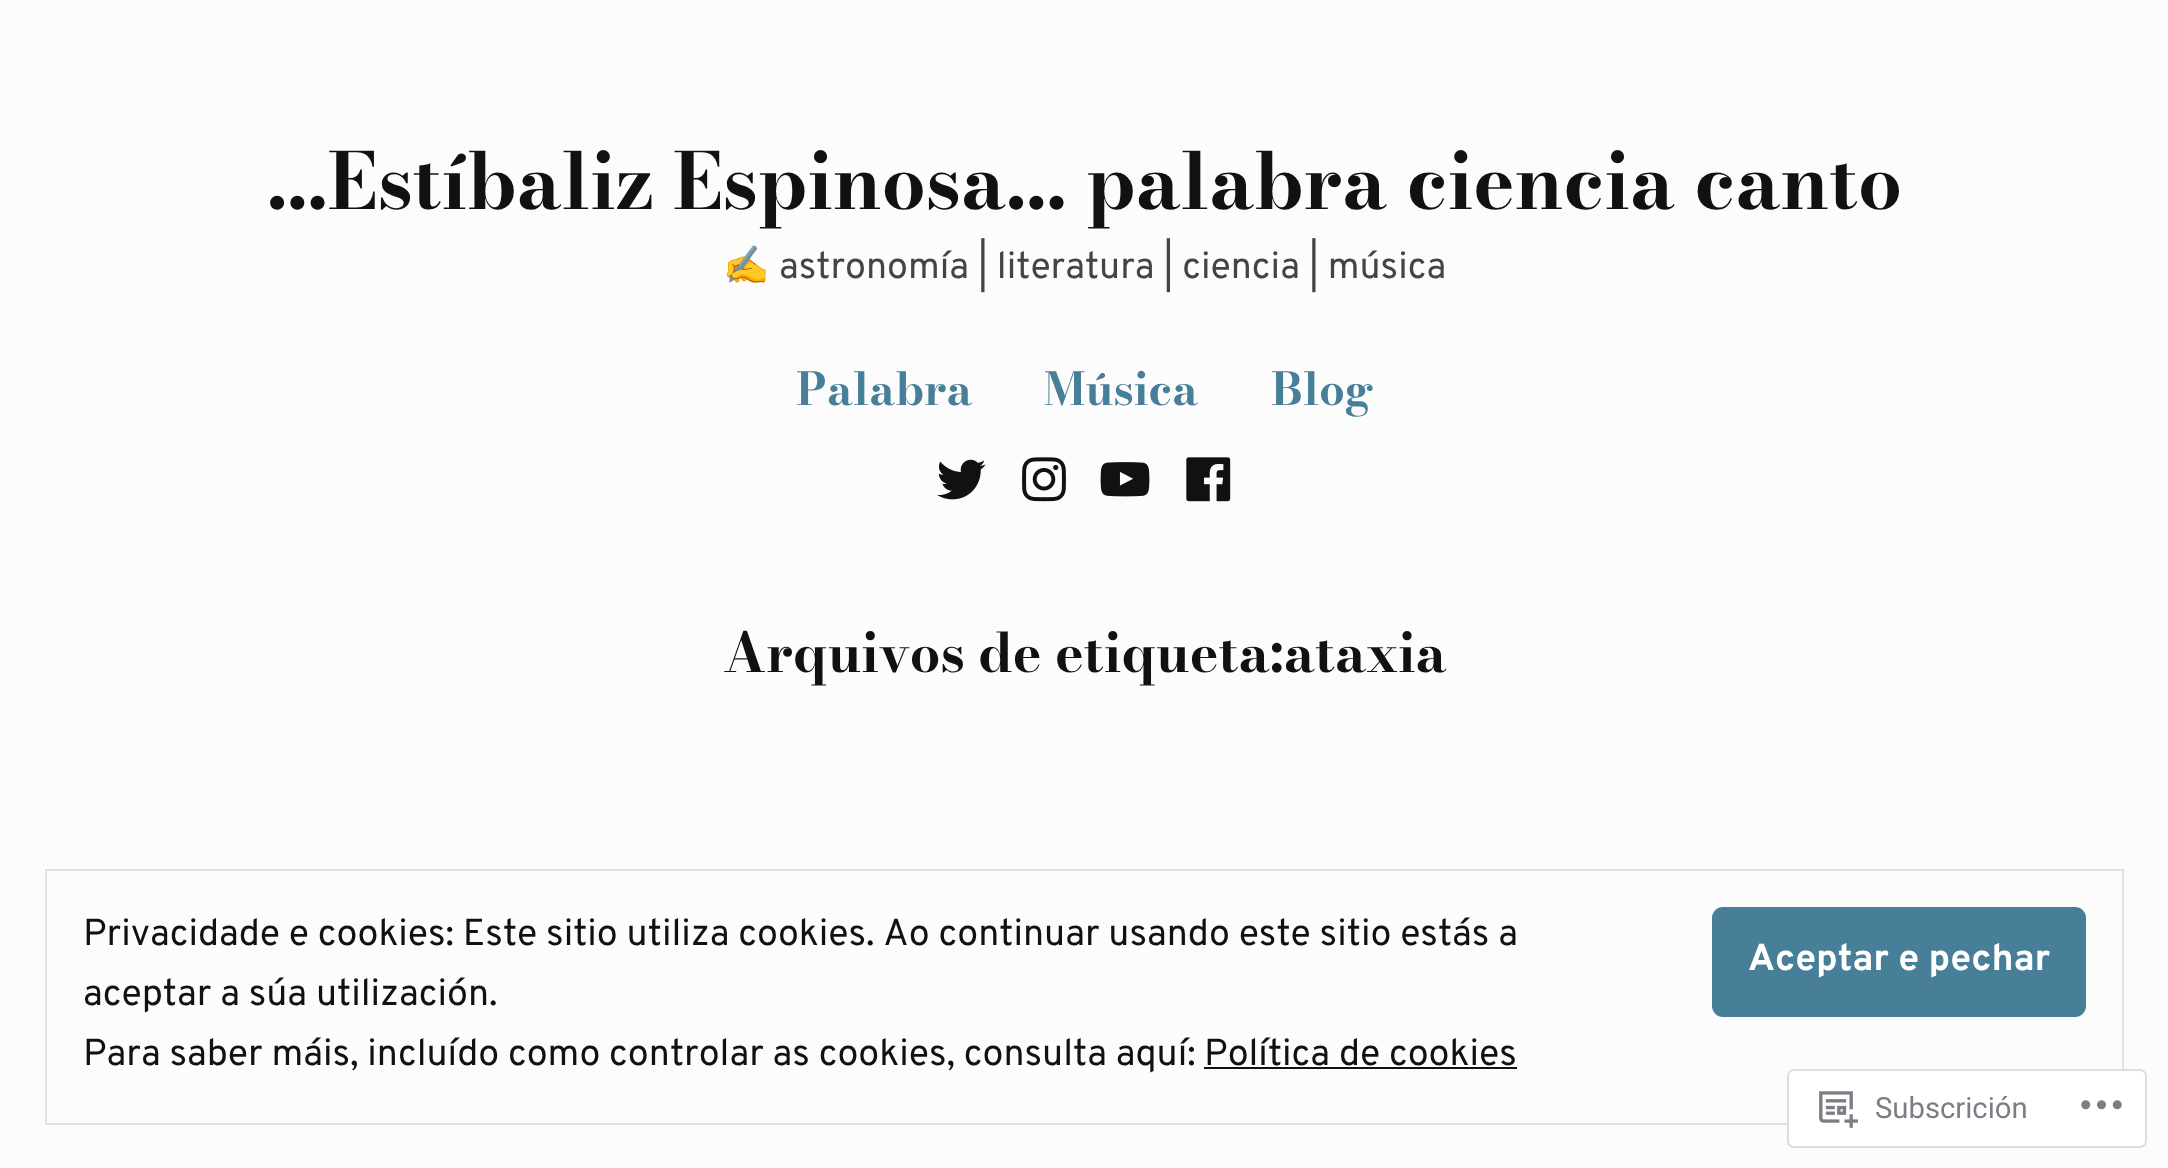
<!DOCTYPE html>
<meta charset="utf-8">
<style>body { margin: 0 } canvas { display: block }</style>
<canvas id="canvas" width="2168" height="1168"></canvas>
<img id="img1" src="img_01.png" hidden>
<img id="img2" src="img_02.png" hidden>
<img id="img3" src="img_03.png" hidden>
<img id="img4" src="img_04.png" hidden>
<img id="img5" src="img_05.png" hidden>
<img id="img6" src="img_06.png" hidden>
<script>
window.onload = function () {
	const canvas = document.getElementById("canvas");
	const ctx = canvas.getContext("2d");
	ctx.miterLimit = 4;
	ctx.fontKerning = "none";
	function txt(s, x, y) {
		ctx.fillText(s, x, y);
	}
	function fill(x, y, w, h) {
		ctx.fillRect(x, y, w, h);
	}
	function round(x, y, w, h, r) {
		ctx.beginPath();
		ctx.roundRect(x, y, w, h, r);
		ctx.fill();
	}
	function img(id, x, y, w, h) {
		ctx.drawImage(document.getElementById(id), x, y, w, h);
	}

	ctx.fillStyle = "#FCFCFC";
	fill(0, 0, 2168, 1168);
	img("img1", 937, 459, 49, 41);
	img("img2", 1022, 457, 44, 45);
	img("img3", 1100, 462, 50, 35);
	img("img4", 1186, 457, 45, 45);
	ctx.strokeStyle = "#E2E2E2";
	ctx.lineWidth = 2;
	ctx.strokeRect(46, 870, 2077, 254);
	ctx.fillStyle = "#477F98";
	round(1712, 907, 374, 110, 11);
	ctx.fillStyle = "#111111";
	fill(1204, 1067, 313, 2);
	ctx.fillStyle = "rgba(255, 255, 255, 0.98)";
	round(1787, 1069, 360, 79, 7);
	ctx.beginPath();
	ctx.roundRect(1788, 1070, 358, 77, 6);
	ctx.strokeStyle = "rgba(220, 220, 222, 0.98)";
	ctx.stroke();
	img("img5", 1819, 1091, 39, 37);
	img("img6", 2081, 1100, 41, 10);
	ctx.font = "bold 77.75px Bodoni Moda";
	ctx.fillStyle = "#111111";
	txt("…Estíbaliz Espinosa… palabra ciencia canto", 267, 209);
	ctx.font = "37.5px Noto Color Emoji";
	ctx.fillStyle = "#444444";
	txt("✍", 723, 278);
	ctx.font = "37.5px Overpass";
	txt("astronomía | literatura | ciencia | música", 779, 278);
	ctx.font = "bold 45px Bodoni Moda";
	ctx.fillStyle = "#477F98";
	txt("Palabra", 796, 405);
	txt("Música", 1044, 405);
	txt("Blog", 1271, 405);
	ctx.font = "bold 54px Bodoni Moda";
	ctx.fillStyle = "#111111";
	txt("Arquivos de etiqueta:ataxia", 723, 672);
	ctx.font = "37.5px Overpass";
	txt("Privacidade e cookies: Este sitio utiliza cookies. Ao continuar usando este sitio estás a", 83, 945);
	ctx.font = "bold 37.5px Overpass";
	ctx.fillStyle = "#FFFFFF";
	txt("Aceptar e pechar", 1748, 970);
	ctx.font = "37.5px Overpass";
	ctx.fillStyle = "#111111";
	txt("aceptar a súa utilización.", 83, 1005);
	txt("Para saber máis, incluído como controlar as cookies, consulta aquí:", 83, 1065);
	txt("Política de cookies", 1204, 1065);
	ctx.font = "29.25px Roboto";
	ctx.fillStyle = "#7B7F84";
	txt("Subscrición", 1875, 1118);
};
</script>
